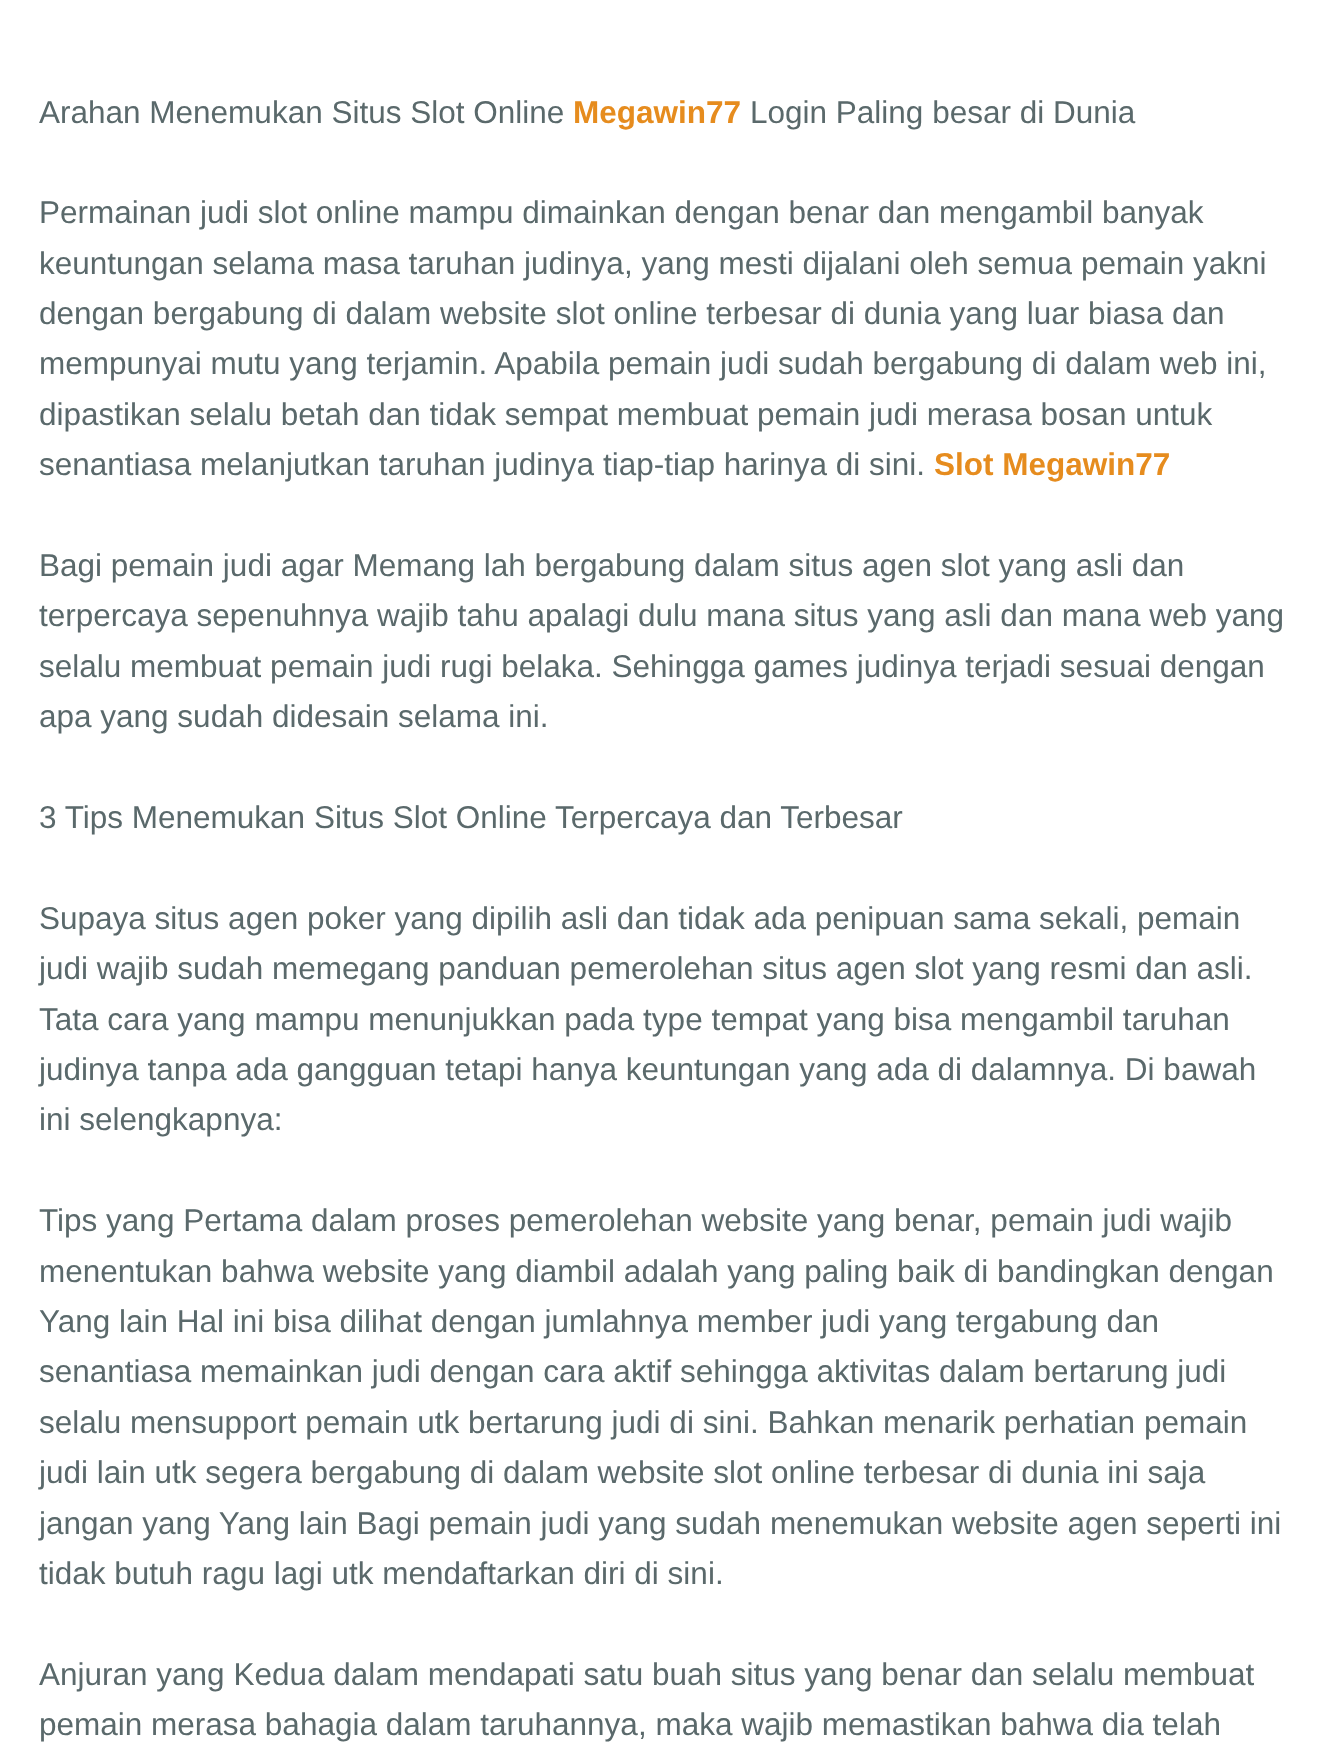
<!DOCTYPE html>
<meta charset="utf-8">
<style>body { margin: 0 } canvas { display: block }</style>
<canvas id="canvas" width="1331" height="1761"></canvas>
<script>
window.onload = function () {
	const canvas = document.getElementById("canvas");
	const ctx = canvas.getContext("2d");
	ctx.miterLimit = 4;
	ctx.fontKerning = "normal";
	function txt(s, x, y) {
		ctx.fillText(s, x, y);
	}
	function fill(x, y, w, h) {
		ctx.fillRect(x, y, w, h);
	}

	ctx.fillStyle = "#FFFFFF";
	fill(0, 0, 1331, 1761);
	ctx.font = "31.5px Liberation Sans";
	ctx.fillStyle = "#5A696B";
	txt("Arahan Menemukan Situs Slot Online", 39, 123);
	ctx.font = "bold 31.5px Liberation Sans";
	ctx.fillStyle = "#E68C1E";
	txt("Megawin77", 573, 123);
	ctx.font = "31.5px Liberation Sans";
	ctx.fillStyle = "#5A696B";
	txt("Login Paling besar di Dunia", 750, 123);
	txt("Permainan judi slot online mampu dimainkan dengan benar dan mengambil banyak", 39, 223);
	txt("keuntungan selama masa taruhan judinya, yang mesti dijalani oleh semua pemain yakni", 39, 274);
	txt("dengan bergabung di dalam website slot online terbesar di dunia yang luar biasa dan", 39, 324);
	txt("mempunyai mutu yang terjamin. Apabila pemain judi sudah bergabung di dalam web ini,", 39, 374);
	txt("dipastikan selalu betah dan tidak sempat membuat pemain judi merasa bosan untuk", 39, 425);
	txt("senantiasa melanjutkan taruhan judinya tiap-tiap harinya di sini.", 39, 475);
	ctx.font = "bold 31.5px Liberation Sans";
	ctx.fillStyle = "#E68C1E";
	txt("Slot Megawin77", 934, 475);
	ctx.font = "31.5px Liberation Sans";
	ctx.fillStyle = "#5A696B";
	txt("Bagi pemain judi agar Memang lah bergabung dalam situs agen slot yang asli dan", 39, 576);
	txt("terpercaya sepenuhnya wajib tahu apalagi dulu mana situs yang asli dan mana web yang", 39, 626);
	txt("selalu membuat pemain judi rugi belaka. Sehingga games judinya terjadi sesuai dengan", 39, 677);
	txt("apa yang sudah didesain selama ini.", 39, 727);
	txt("3 Tips Menemukan Situs Slot Online Terpercaya dan Terbesar", 39, 828);
	txt("Supaya situs agen poker yang dipilih asli dan tidak ada penipuan sama sekali, pemain", 39, 929);
	txt("judi wajib sudah memegang panduan pemerolehan situs agen slot yang resmi dan asli.", 39, 979);
	txt("Tata cara yang mampu menunjukkan pada type tempat yang bisa mengambil taruhan", 39, 1030);
	txt("judinya tanpa ada gangguan tetapi hanya keuntungan yang ada di dalamnya. Di bawah", 39, 1080);
	txt("ini selengkapnya:", 39, 1130);
	txt("Tips yang Pertama dalam proses pemerolehan website yang benar, pemain judi wajib", 39, 1231);
	txt("menentukan bahwa website yang diambil adalah yang paling baik di bandingkan dengan", 39, 1282);
	txt("Yang lain Hal ini bisa dilihat dengan jumlahnya member judi yang tergabung dan", 39, 1332);
	txt("senantiasa memainkan judi dengan cara aktif sehingga aktivitas dalam bertarung judi", 39, 1382);
	txt("selalu mensupport pemain utk bertarung judi di sini. Bahkan menarik perhatian pemain", 39, 1433);
	txt("judi lain utk segera bergabung di dalam website slot online terbesar di dunia ini saja", 39, 1483);
	txt("jangan yang Yang lain Bagi pemain judi yang sudah menemukan website agen seperti ini", 39, 1534);
	txt("tidak butuh ragu lagi utk mendaftarkan diri di sini.", 39, 1584);
	txt("Anjuran yang Kedua dalam mendapati satu buah situs yang benar dan selalu membuat", 39, 1685);
	txt("pemain merasa bahagia dalam taruhannya, maka wajib memastikan bahwa dia telah", 39, 1735);
};
</script>
